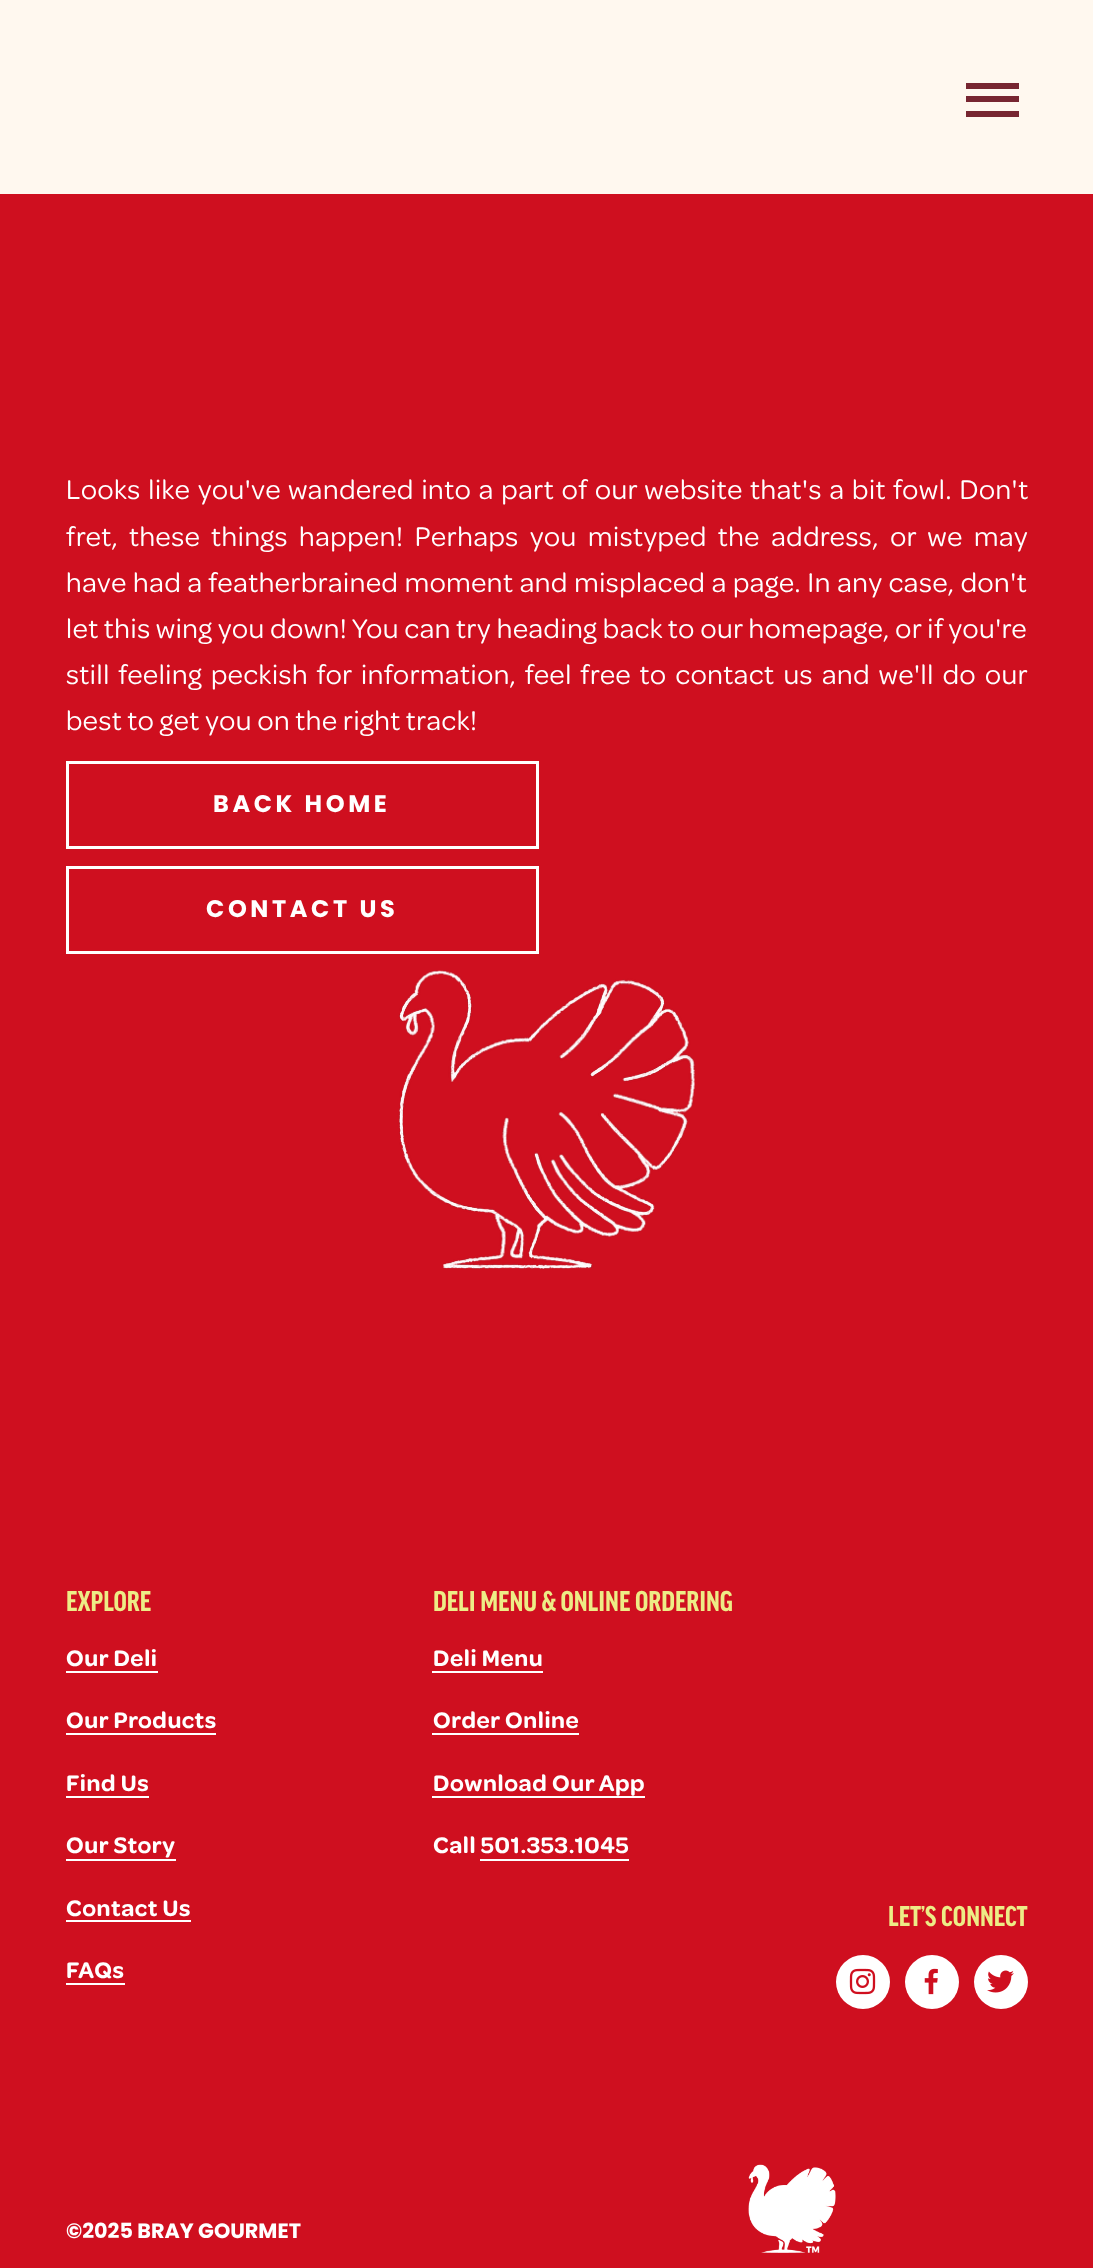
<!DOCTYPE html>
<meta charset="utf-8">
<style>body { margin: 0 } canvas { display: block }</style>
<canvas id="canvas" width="1093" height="2268"></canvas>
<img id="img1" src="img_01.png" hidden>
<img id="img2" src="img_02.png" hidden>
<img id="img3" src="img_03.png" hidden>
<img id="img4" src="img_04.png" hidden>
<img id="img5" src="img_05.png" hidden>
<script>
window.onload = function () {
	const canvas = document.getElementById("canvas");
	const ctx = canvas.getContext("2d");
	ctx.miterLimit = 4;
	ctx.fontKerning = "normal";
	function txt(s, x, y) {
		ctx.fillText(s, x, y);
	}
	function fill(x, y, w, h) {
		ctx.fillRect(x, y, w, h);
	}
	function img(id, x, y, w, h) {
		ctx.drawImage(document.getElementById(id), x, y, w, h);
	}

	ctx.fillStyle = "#CF0F1F";
	fill(0, 0, 1093, 2268);
	ctx.fillStyle = "#FFF8EF";
	fill(0, 0, 1093, 194);
	ctx.fillStyle = "#772631";
	fill(966, 83, 53, 6);
	fill(966, 96, 53, 6);
	fill(966, 111, 53, 6);
	ctx.strokeStyle = "#FFFFFF";
	ctx.lineWidth = 3;
	ctx.strokeRect(67.5, 762.5, 470, 85);
	ctx.strokeRect(67.5, 867.5, 470, 85);
	img("img1", 399, 970, 296, 299);
	ctx.fillStyle = "#FFFFFF";
	fill(66, 1671, 92, 2);
	fill(66, 1733, 150, 2);
	fill(66, 1796, 83, 2);
	fill(66, 1859, 110, 2);
	fill(66, 1920, 125, 2);
	fill(66, 1983, 59, 2);
	fill(432, 1671, 111, 2);
	fill(432, 1733, 147, 2);
	fill(432, 1796, 213, 2);
	fill(480, 1859, 149, 2);
	ctx.beginPath();
	ctx.arc(863, 1982, 27, 0, Math.PI * 2);
	ctx.fill();
	img("img2", 849, 1968, 27, 27);
	ctx.beginPath();
	ctx.arc(932, 1982, 27, 0, Math.PI * 2);
	ctx.fill();
	img("img3", 924, 1968, 14, 27);
	ctx.beginPath();
	ctx.arc(1001, 1982, 27, 0, Math.PI * 2);
	ctx.fill();
	img("img4", 987, 1970, 27, 23);
	img("img5", 748, 2164, 88, 89);
	ctx.letterSpacing = "0.58px";
	ctx.wordSpacing = "2px";
	ctx.font = "28.85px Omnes";
	txt("Looks like you've wandered into a part of our website that's a bit fowl. Don't", 66, 499);
	ctx.wordSpacing = "5.75px";
	txt("fret, these things happen! Perhaps you mistyped the address, or we may", 66, 546);
	ctx.wordSpacing = "0.75px";
	txt("have had a featherbrained moment and misplaced a page. In any case, don't", 66, 592);
	ctx.wordSpacing = "0.1px";
	txt("let this wing you down! You can try heading back to our homepage, or if you're", 66, 638);
	ctx.wordSpacing = "3.4px";
	txt("still feeling peckish for information, feel free to contact us and we'll do our", 66, 684);
	ctx.wordSpacing = "0px";
	txt("best to get you on the right track!", 66, 730);
	ctx.letterSpacing = "3.6px";
	ctx.font = "bold 24px Poppins";
	txt("BACK HOME", 213, 812);
	txt("CONTACT US", 206, 917);
	ctx.letterSpacing = "0px";
	ctx.font = "bold 30.5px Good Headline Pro";
	ctx.fillStyle = "#EDEC86";
	txt("EXPLORE", 66, 1611);
	txt("DELI MENU & ONLINE ORDERING", 433, 1611);
	ctx.letterSpacing = "0.58px";
	ctx.font = "600 24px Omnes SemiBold";
	ctx.fillStyle = "#FFFFFF";
	txt("Our Deli", 66, 1666);
	txt("Our Products", 66, 1728);
	txt("Find Us", 66, 1791);
	txt("Our Story", 66, 1853);
	txt("Contact Us", 66, 1916);
	txt("FAQs", 66, 1978);
	txt("Deli Menu", 433, 1666);
	txt("Order Online", 433, 1728);
	txt("Download Our App", 433, 1791);
	txt("Call 501.353.1045", 433, 1853);
	ctx.letterSpacing = "0px";
	ctx.font = "bold 30.5px Good Headline Pro";
	ctx.fillStyle = "#EDEC86";
	txt("LET’S CONNECT", 888, 1926);
	ctx.font = "bold 20.75px Poppins";
	ctx.fillStyle = "#FFFFFF";
	txt("©2025 BRAY GOURMET", 66, 2238);
};
</script>
